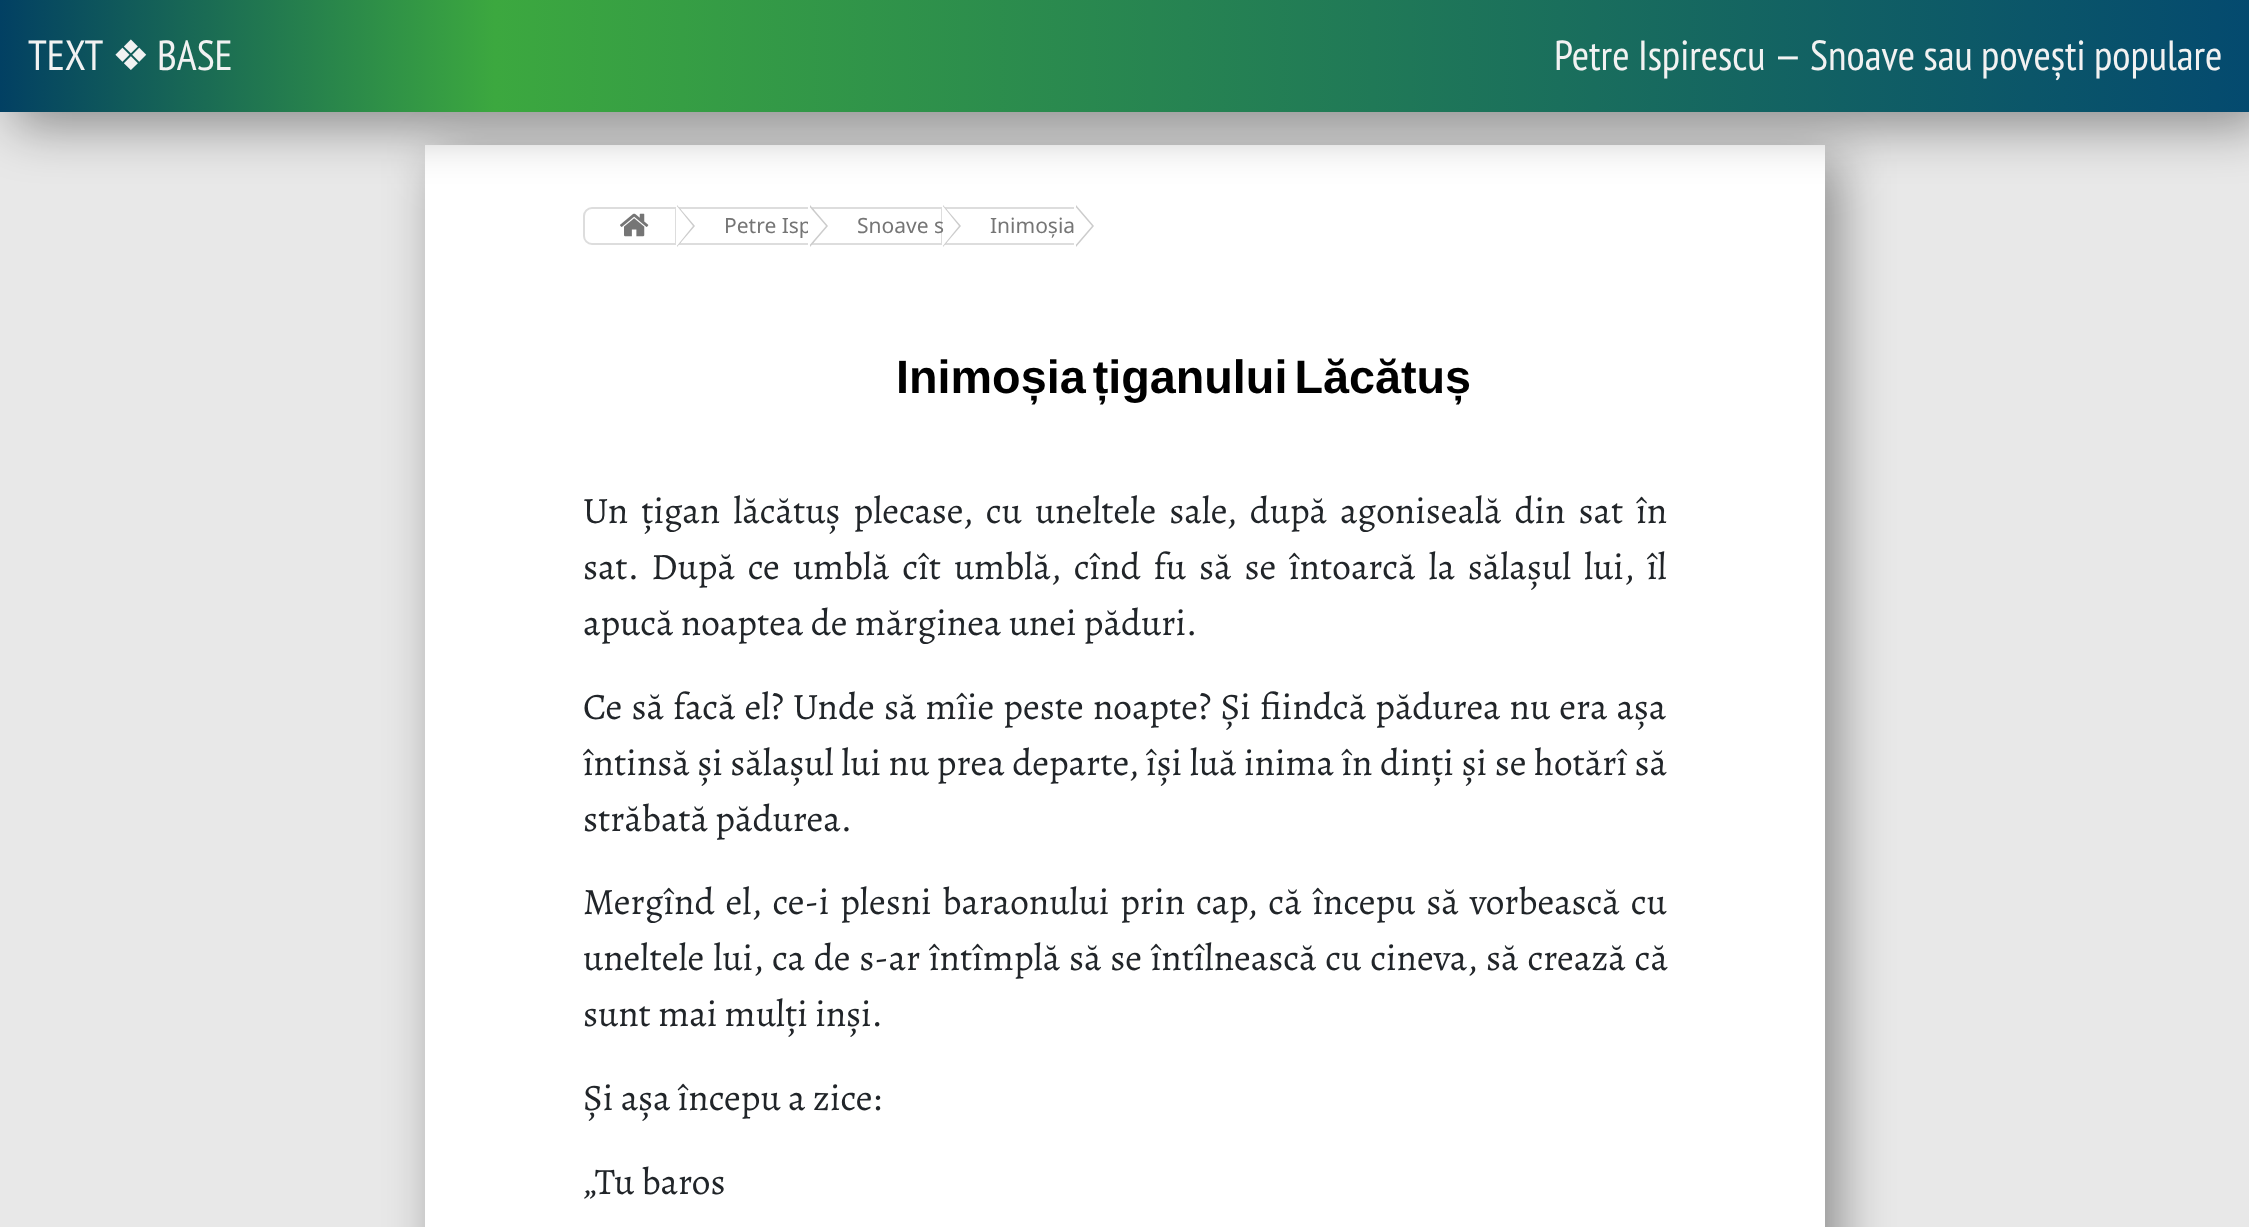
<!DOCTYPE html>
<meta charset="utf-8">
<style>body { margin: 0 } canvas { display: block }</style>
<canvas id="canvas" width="2249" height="1227"></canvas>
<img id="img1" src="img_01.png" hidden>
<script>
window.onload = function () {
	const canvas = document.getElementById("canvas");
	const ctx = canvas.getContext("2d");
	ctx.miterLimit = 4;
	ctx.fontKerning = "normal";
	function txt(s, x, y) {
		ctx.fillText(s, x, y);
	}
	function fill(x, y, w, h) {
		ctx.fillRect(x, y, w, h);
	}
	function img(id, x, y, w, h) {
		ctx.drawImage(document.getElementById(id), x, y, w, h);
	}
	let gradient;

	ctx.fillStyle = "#E8E8E8";
	fill(0, 0, 2249, 1227);
	ctx.fillStyle = "rgba(0, 0, 0, 0.4)";
	ctx.filter = "blur(26px)";
	ctx.beginPath();
	ctx.rect(439, 159, 1400, 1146);
	ctx.fill();
	ctx.filter = "none";
	ctx.fillStyle = "#FFFFFF";
	fill(425, 145, 1400, 1082);
	ctx.fillStyle = "rgba(0, 0, 0, 0.4)";
	ctx.filter = "blur(26px)";
	ctx.beginPath();
	ctx.rect(14, 14, 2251, 112);
	ctx.fill();
	ctx.filter = "none";
	gradient = ctx.createLinearGradient(0, 56, 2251, 56);
	gradient.addColorStop(0, "#024063");
	gradient.addColorStop(0.22, "#3CA83F");
	gradient.addColorStop(1, "#044A6F");
	ctx.fillStyle = gradient;
	fill(0, 0, 2249, 112);
	ctx.beginPath();
	ctx.roundRect(584, 208, 92, 36, [8, 0, 0, 8]);
	ctx.strokeStyle = "#DDDDDD";
	ctx.lineWidth = 2;
	ctx.stroke();
	ctx.strokeRect(680, 208, 129, 36);
	ctx.fillStyle = "#CCCCCC";
	ctx.beginPath();
	ctx.moveTo(677, 247);
	ctx.lineTo(677, 205);
	ctx.lineTo(695, 226);
	ctx.closePath();
	ctx.fill();
	ctx.fillStyle = "#FFFFFF";
	ctx.beginPath();
	ctx.moveTo(676, 247);
	ctx.lineTo(676, 205);
	ctx.lineTo(693, 226);
	ctx.closePath();
	ctx.fill();
	img("img1", 620, 213, 29, 24);
	ctx.strokeRect(813, 208, 129, 36);
	ctx.fillStyle = "#CCCCCC";
	ctx.beginPath();
	ctx.moveTo(810, 247);
	ctx.lineTo(810, 205);
	ctx.lineTo(828, 226);
	ctx.closePath();
	ctx.fill();
	ctx.strokeRect(946, 208, 129, 36);
	ctx.beginPath();
	ctx.moveTo(943, 247);
	ctx.lineTo(943, 205);
	ctx.lineTo(961, 226);
	ctx.closePath();
	ctx.fill();
	ctx.fillStyle = "#FFFFFF";
	ctx.beginPath();
	ctx.moveTo(942, 247);
	ctx.lineTo(942, 205);
	ctx.lineTo(959, 226);
	ctx.closePath();
	ctx.fill();
	ctx.fillStyle = "#CCCCCC";
	ctx.beginPath();
	ctx.moveTo(1076, 247);
	ctx.lineTo(1076, 205);
	ctx.lineTo(1094, 226);
	ctx.closePath();
	ctx.fill();
	ctx.fillStyle = "#FFFFFF";
	ctx.beginPath();
	ctx.moveTo(1074, 247);
	ctx.lineTo(1074, 205);
	ctx.lineTo(1092, 226);
	ctx.closePath();
	ctx.fill();
	ctx.font = "42px PT Sans Narrow";
	ctx.fillStyle = "#F2F2F2";
	txt("TEXT", 28, 70);
	ctx.font = "42px DejaVu Sans";
	txt("❖", 112, 70);
	ctx.font = "42px PT Sans Narrow";
	txt("BASE", 157, 70);
	ctx.wordSpacing = "-0.5px";
	txt("Petre Ispirescu — Snoave sau povești populare", 1554, 70);
	ctx.wordSpacing = "0px";
	ctx.font = "21px Noto Sans";
	ctx.fillStyle = "#757575";
	txt("Petre Isp", 724, 233);
	ctx.fillStyle = "#FFFFFF";
	ctx.beginPath();
	ctx.moveTo(808, 247);
	ctx.lineTo(808, 205);
	ctx.lineTo(826, 226);
	ctx.closePath();
	ctx.fill();
	ctx.fillStyle = "#757575";
	txt("Snoave s", 857, 233);
	txt("Inimoșia", 990, 233);
	ctx.wordSpacing = "-6px";
	ctx.font = "bold 46.75px Liberation Sans";
	ctx.fillStyle = "#000000";
	txt("Inimoșia țiganului Lăcătuș", 896, 393);
	ctx.wordSpacing = "5.75px";
	ctx.font = "37.3px Alegreya";
	ctx.fillStyle = "#212529";
	txt("Un țigan lăcătuș plecase, cu uneltele sale, după agoniseală din sat în", 583, 523);
	ctx.wordSpacing = "5.6px";
	txt("sat. După ce umblă cît umblă, cînd fu să se întoarcă la sălașul lui, îl", 583, 579);
	ctx.wordSpacing = "0px";
	txt("apucă noaptea de mărginea unei păduri.", 583, 635);
	ctx.wordSpacing = "1.75px";
	txt("Ce să facă el? Unde să mîie peste noapte? Și fiindcă pădurea nu era așa", 583, 719);
	ctx.wordSpacing = "0.25px";
	txt("întinsă și sălașul lui nu prea departe, își luă inima în dinți și se hotărî să", 583, 775);
	ctx.wordSpacing = "0px";
	txt("străbată pădurea.", 583, 831);
	ctx.wordSpacing = "3.6px";
	txt("Mergînd el, ce-i plesni baraonului prin cap, că începu să vorbească cu", 583, 914);
	ctx.wordSpacing = "1.5px";
	txt("uneltele lui, ca de s-ar întîmplă să se întîlnească cu cineva, să crează că", 583, 970);
	ctx.wordSpacing = "0px";
	txt("sunt mai mulți inși.", 583, 1026);
	txt("Și așa începu a zice:", 583, 1110);
	txt("„Tu baros", 583, 1194);
};
</script>
